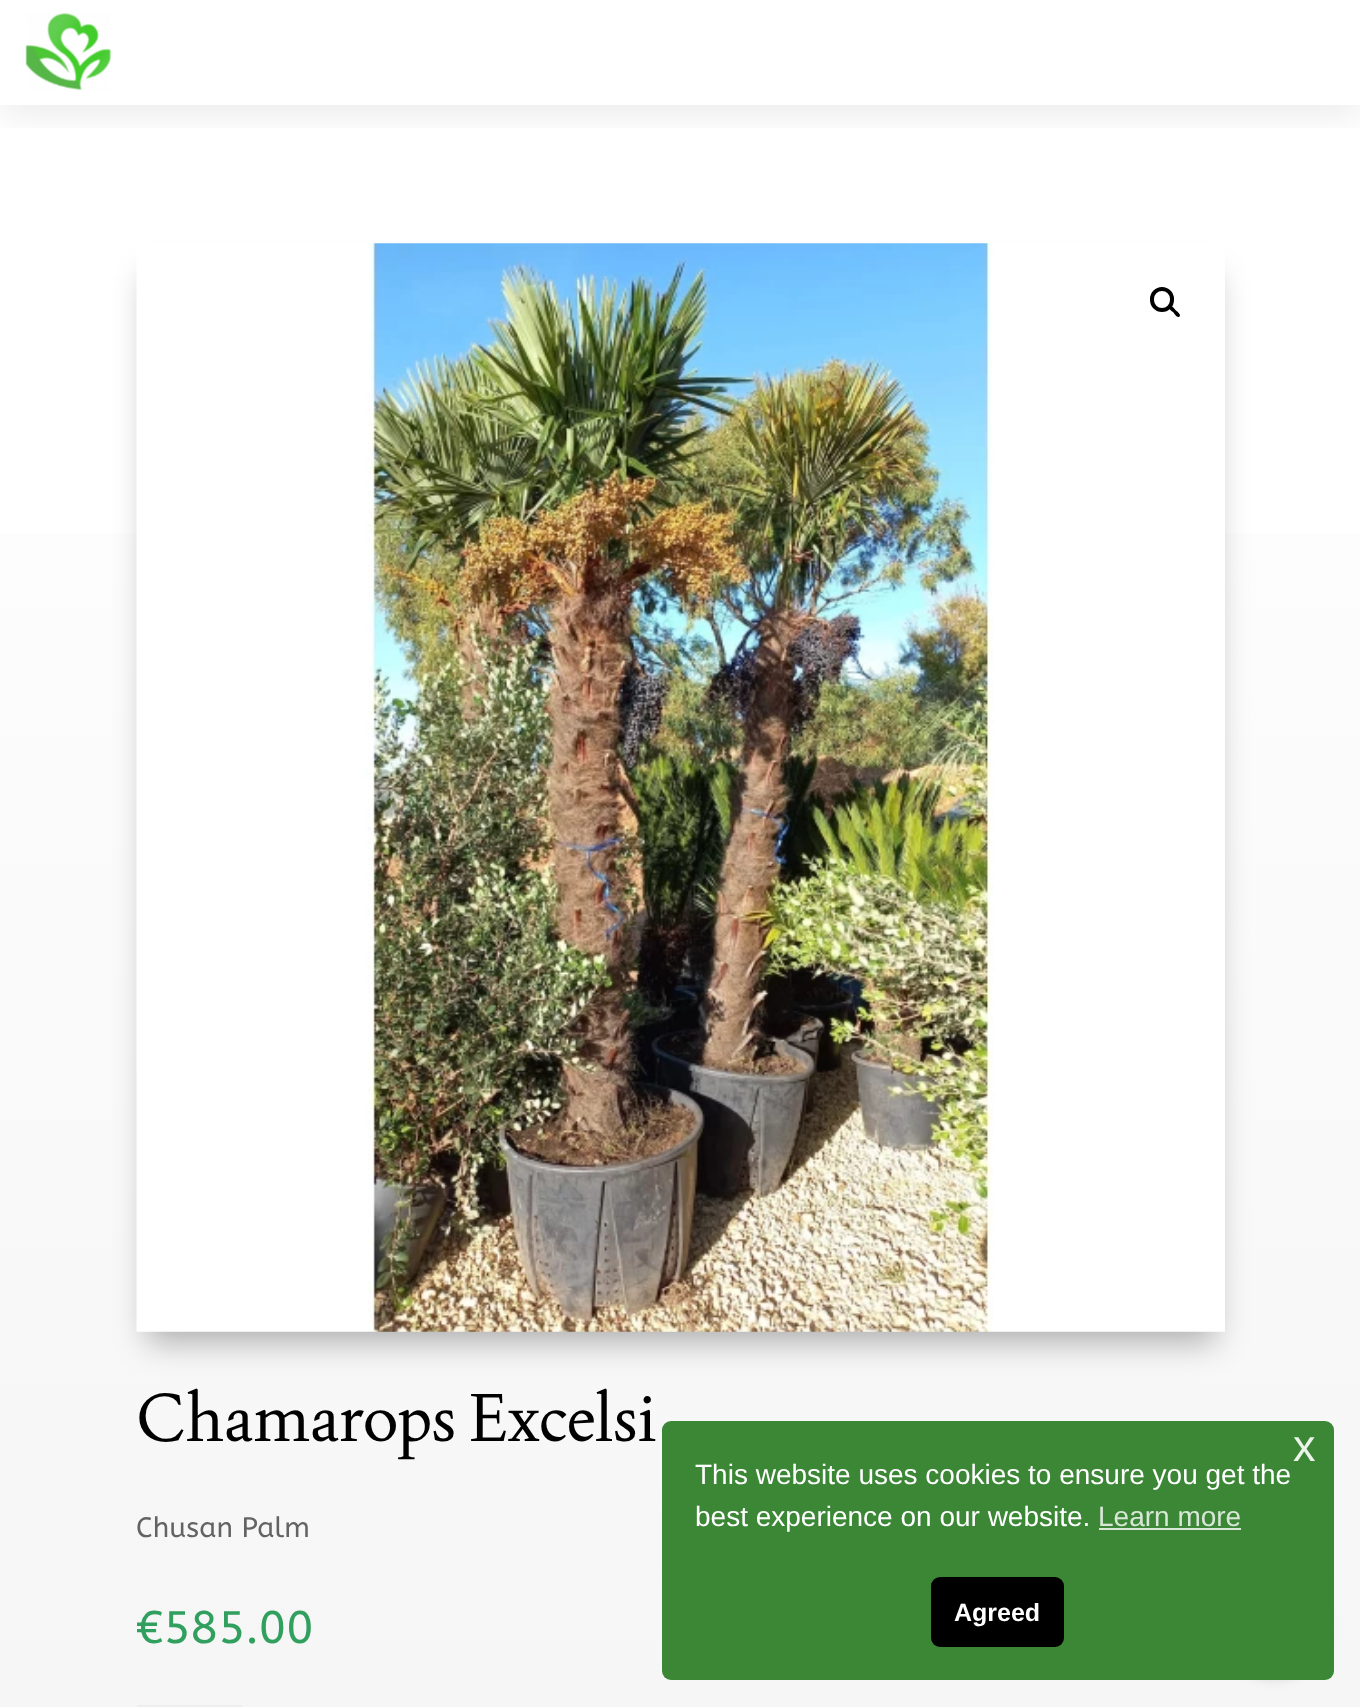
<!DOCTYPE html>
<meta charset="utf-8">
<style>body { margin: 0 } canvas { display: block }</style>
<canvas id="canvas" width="1360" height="1707"></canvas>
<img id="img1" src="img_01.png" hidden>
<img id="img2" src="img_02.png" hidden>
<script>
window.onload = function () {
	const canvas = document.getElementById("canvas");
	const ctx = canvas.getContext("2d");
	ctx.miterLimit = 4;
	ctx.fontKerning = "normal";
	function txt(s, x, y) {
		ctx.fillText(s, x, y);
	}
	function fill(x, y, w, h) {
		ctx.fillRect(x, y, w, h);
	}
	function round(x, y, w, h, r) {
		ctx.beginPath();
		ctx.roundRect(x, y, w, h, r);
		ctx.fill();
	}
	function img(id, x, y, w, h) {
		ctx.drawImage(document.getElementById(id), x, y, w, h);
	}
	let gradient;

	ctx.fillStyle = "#FFFFFF";
	fill(0, 0, 1360, 1707);
	ctx.save();
	ctx.beginPath();
	ctx.rect(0, 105, 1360, 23);
	ctx.clip();
	ctx.fillStyle = "rgba(0, 0, 0, 0.1)";
	ctx.filter = "blur(22px)";
	ctx.beginPath();
	ctx.rect(0, 4, 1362, 105);
	ctx.fill();
	ctx.filter = "none";
	ctx.restore();
	img("img1", 25, 13, 86, 78);
	gradient = ctx.createLinearGradient(681, 103, 681, 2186);
	gradient.addColorStop(0, "#FFFFFF");
	gradient.addColorStop(0.99, "#F3F3F3");
	ctx.fillStyle = gradient;
	fill(0, 533, 1360, 1174);
	ctx.fillStyle = "rgba(0, 0, 0, 0.3)";
	ctx.filter = "blur(16px)";
	ctx.beginPath();
	ctx.rect(147, 275, 1068, 1067);
	ctx.fill();
	ctx.filter = "none";
	img("img2", 136, 243, 1089, 1089);
	ctx.beginPath();
	ctx.roundRect(1152, 289, 20, 21, 10);
	ctx.strokeStyle = "#000000";
	ctx.lineWidth = 4;
	ctx.stroke();
	ctx.fillStyle = "#000000";
	ctx.beginPath();
	ctx.moveTo(1169.5, 306.5);
	ctx.bezierCurveTo(1171.5, 304.5, 1174.5, 309, 1176, 310.5);
	ctx.bezierCurveTo(1177, 311.5, 1181.5, 314.5, 1179.5, 316.5);
	ctx.bezierCurveTo(1177.5, 318.5, 1174.5, 314, 1173.5, 312.5);
	ctx.bezierCurveTo(1172.5, 311.5, 1167.5, 308.5, 1169.5, 306.5);
	ctx.closePath();
	ctx.fill();
	ctx.fillStyle = "#EEEEEE";
	fill(137, 1705, 105, 2);
	ctx.fillStyle = "rgba(0, 0, 0, 0.1)";
	ctx.filter = "blur(6px)";
	ctx.beginPath();
	ctx.roundRect(1222, 1575, 105, 105, 52.5);
	ctx.fill();
	ctx.filter = "none";
	ctx.fillStyle = "#3B8736";
	round(662, 1421, 672, 259, 9);
	ctx.fillStyle = "#D8E7D7";
	fill(1099, 1528, 142, 2);
	ctx.fillStyle = "#000000";
	round(931, 1577, 133, 70, 9);
	ctx.font = "66.5px Joan";
	txt("Chamarops Excelsi", 136, 1441);
	ctx.font = "28px ABeeZee";
	ctx.fillStyle = "#636363";
	txt("Chusan Palm", 136, 1537);
	ctx.font = "45.5px ABeeZee";
	ctx.fillStyle = "#31A05F";
	txt("€585.00", 136, 1643);
	ctx.font = "45px Liberation Sans";
	ctx.fillStyle = "#EBF3EB";
	txt("x", 1293, 1461);
	ctx.font = "28px Liberation Sans";
	ctx.fillStyle = "#FFFFFF";
	txt("This website uses cookies to ensure you get the", 695, 1484);
	txt("best experience on our website.", 695, 1526);
	ctx.fillStyle = "#D8E7D7";
	txt("Learn more", 1098, 1526);
	ctx.font = "bold 25px Liberation Sans";
	ctx.fillStyle = "#FFFFFF";
	txt("Agreed", 954, 1621);
};
</script>
